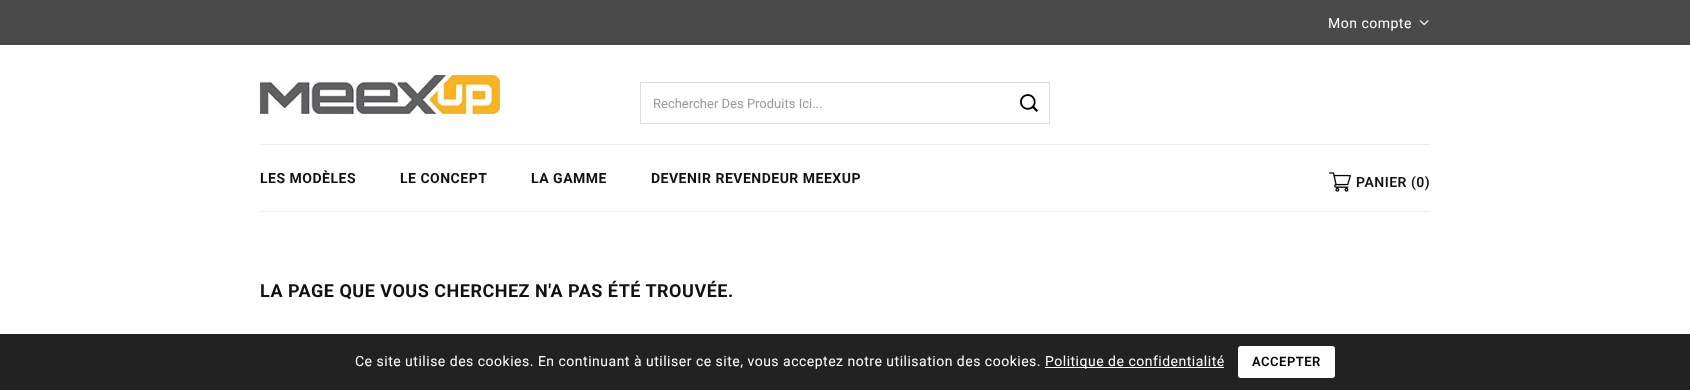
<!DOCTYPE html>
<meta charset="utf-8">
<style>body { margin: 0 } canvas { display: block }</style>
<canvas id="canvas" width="1690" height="390"></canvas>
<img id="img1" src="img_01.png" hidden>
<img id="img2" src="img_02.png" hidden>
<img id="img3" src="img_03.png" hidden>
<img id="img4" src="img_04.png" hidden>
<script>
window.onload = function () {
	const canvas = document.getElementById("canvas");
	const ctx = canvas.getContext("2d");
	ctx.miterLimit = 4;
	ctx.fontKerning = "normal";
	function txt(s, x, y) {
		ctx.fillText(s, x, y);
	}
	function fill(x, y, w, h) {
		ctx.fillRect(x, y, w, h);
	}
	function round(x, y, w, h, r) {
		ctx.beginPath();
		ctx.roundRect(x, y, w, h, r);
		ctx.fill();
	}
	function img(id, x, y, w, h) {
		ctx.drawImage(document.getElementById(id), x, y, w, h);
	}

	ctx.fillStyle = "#FFFFFF";
	fill(0, 0, 1690, 390);
	ctx.fillStyle = "#494949";
	fill(0, 0, 1690, 45);
	img("img1", 1419, 20, 10, 6);
	img("img2", 260, 75, 240, 39);
	ctx.strokeStyle = "#DDDDDD";
	ctx.strokeRect(640.5, 82.5, 409, 41);
	img("img3", 1020, 94, 18, 18);
	ctx.fillStyle = "#EDEDED";
	fill(260, 144, 1170, 1);
	fill(260, 211, 1170, 1);
	img("img4", 1329, 172, 22, 20);
	ctx.fillStyle = "#222222";
	fill(0, 334, 1690, 56);
	ctx.fillStyle = "#FFFFFF";
	fill(1045, 367, 179, 1);
	round(1238, 346, 97, 32, 3);
	ctx.letterSpacing = "0.5px";
	ctx.font = "14px Roboto";
	txt("Mon compte", 1328, 28);
	ctx.letterSpacing = "0px";
	ctx.font = "13px Roboto";
	ctx.fillStyle = "#9A9A9A";
	txt("Rechercher Des Produits Ici...", 653, 108);
	ctx.letterSpacing = "0.5px";
	ctx.font = "bold 14px Roboto";
	ctx.fillStyle = "#111111";
	txt("LES MODÈLES", 260, 183);
	txt("LE CONCEPT", 400, 183);
	txt("LA GAMME", 531, 183);
	txt("DEVENIR REVENDEUR MEEXUP", 651, 183);
	ctx.font = "600 14px Roboto";
	txt("PANIER (0)", 1356, 187);
	ctx.font = "bold 18px Roboto";
	txt("LA PAGE QUE VOUS CHERCHEZ N'A PAS ÉTÉ TROUVÉE.", 260, 297);
	ctx.font = "14px Roboto";
	ctx.fillStyle = "#FFFFFF";
	txt("Ce site utilise des cookies. En continuant à utiliser ce site, vous acceptez notre utilisation des cookies.", 355, 366);
	txt("Politique de confidentialité", 1045, 366);
	ctx.font = "600 13px Roboto";
	ctx.fillStyle = "#000000";
	txt("ACCEPTER", 1252, 366);
};
</script>
